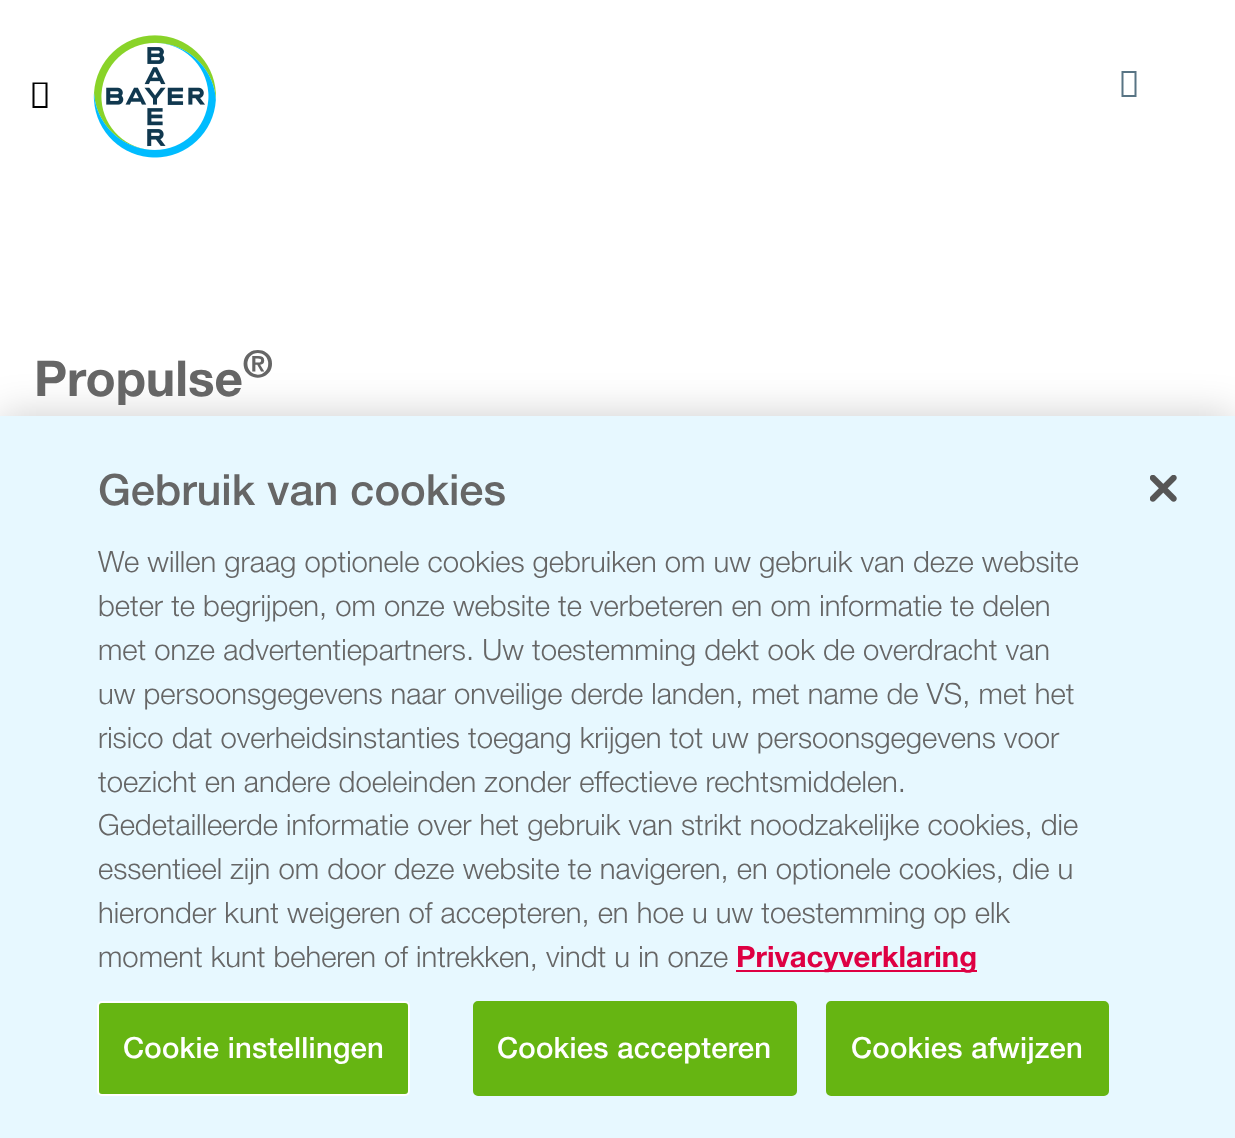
<!DOCTYPE html>
<meta charset="utf-8">
<style>body { margin: 0 } canvas { display: block }</style>
<canvas id="canvas" width="1235" height="1138"></canvas>
<img id="img1" src="img_01.png" hidden>
<img id="img2" src="img_02.png" hidden>
<script>
window.onload = function () {
	const canvas = document.getElementById("canvas");
	const ctx = canvas.getContext("2d");
	ctx.miterLimit = 4;
	ctx.fontKerning = "normal";
	function txt(s, x, y) {
		ctx.fillText(s, x, y);
	}
	function fill(x, y, w, h) {
		ctx.fillRect(x, y, w, h);
	}
	function img(id, x, y, w, h) {
		ctx.drawImage(document.getElementById(id), x, y, w, h);
	}

	ctx.fillStyle = "#FFFFFF";
	fill(0, 0, 1235, 1138);
	ctx.fillStyle = "#000000";
	ctx.beginPath();
	ctx.moveTo(32.5, 108);
	ctx.lineTo(32.5, 82.5);
	ctx.lineTo(47.5, 82.5);
	ctx.lineTo(47.5, 108);
	ctx.closePath();
	ctx.moveTo(34.5, 106);
	ctx.lineTo(45.5, 106);
	ctx.lineTo(45.5, 84);
	ctx.lineTo(34.5, 84);
	ctx.closePath();
	ctx.fill();
	img("img1", 93, 35, 123, 123);
	ctx.fillStyle = "#587484";
	ctx.beginPath();
	ctx.moveTo(1121.5, 97);
	ctx.lineTo(1121.5, 71);
	ctx.lineTo(1136.5, 71);
	ctx.lineTo(1136.5, 97);
	ctx.closePath();
	ctx.moveTo(1123.5, 95);
	ctx.lineTo(1134.5, 95);
	ctx.lineTo(1134.5, 73);
	ctx.lineTo(1123.5, 73);
	ctx.closePath();
	ctx.fill();
	ctx.fillStyle = "rgba(0, 0, 0, 0.2)";
	ctx.filter = "blur(20px)";
	ctx.beginPath();
	ctx.rect(0, 416, 1235, 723);
	ctx.fill();
	ctx.filter = "none";
	ctx.fillStyle = "#E7F8FF";
	fill(0, 416, 1235, 722);
	ctx.fillStyle = "#DE0043";
	fill(736, 970, 241, 2);
	ctx.fillStyle = "#66B512";
	ctx.beginPath();
	ctx.roundRect(98, 1002, 311, 93, 4);
	ctx.fill();
	ctx.strokeStyle = "#FFFFFF";
	ctx.lineWidth = 2;
	ctx.stroke();
	ctx.beginPath();
	ctx.roundRect(474, 1002, 322, 93, 4);
	ctx.fill();
	ctx.strokeStyle = "#66B512";
	ctx.stroke();
	ctx.beginPath();
	ctx.roundRect(827, 1002, 281, 93, 4);
	ctx.fill();
	ctx.stroke();
	img("img2", 1150, 475, 27, 27);
	ctx.font = "bold 49.5px Helvetica Neue";
	ctx.fillStyle = "#666666";
	txt("Propulse", 34, 396);
	ctx.font = "bold 37px Helvetica Neue";
	txt("®", 243, 377);
	ctx.font = "500 43.25px Helvetica Neue";
	txt("Gebruik van cookies", 98, 505);
	ctx.font = "300 29.25px Helvetica Neue";
	txt("We willen graag optionele cookies gebruiken om uw gebruik van deze website", 98, 572);
	txt("beter te begrijpen, om onze website te verbeteren en om informatie te delen", 98, 616);
	txt("met onze advertentiepartners. Uw toestemming dekt ook de overdracht van", 98, 660);
	txt("uw persoonsgegevens naar onveilige derde landen, met name de VS, met het", 98, 704);
	txt("risico dat overheidsinstanties toegang krijgen tot uw persoonsgegevens voor", 98, 748);
	txt("toezicht en andere doeleinden zonder effectieve rechtsmiddelen.", 98, 792);
	txt("Gedetailleerde informatie over het gebruik van strikt noodzakelijke cookies, die", 98, 835);
	txt("essentieel zijn om door deze website te navigeren, en optionele cookies, die u", 98, 879);
	txt("hieronder kunt weigeren of accepteren, en hoe u uw toestemming op elk", 98, 923);
	txt("moment kunt beheren of intrekken, vindt u in onze", 98, 967);
	ctx.font = "bold 29.25px Helvetica Neue";
	ctx.fillStyle = "#DE0043";
	txt("Privacyverklaring", 736, 967);
	ctx.letterSpacing = "0.25px";
	ctx.font = "500 29.25px Helvetica Neue";
	ctx.fillStyle = "#FFFFFF";
	txt("Cookie instellingen", 123, 1058);
	txt("Cookies accepteren", 497, 1058);
	txt("Cookies afwijzen", 851, 1058);
};
</script>
